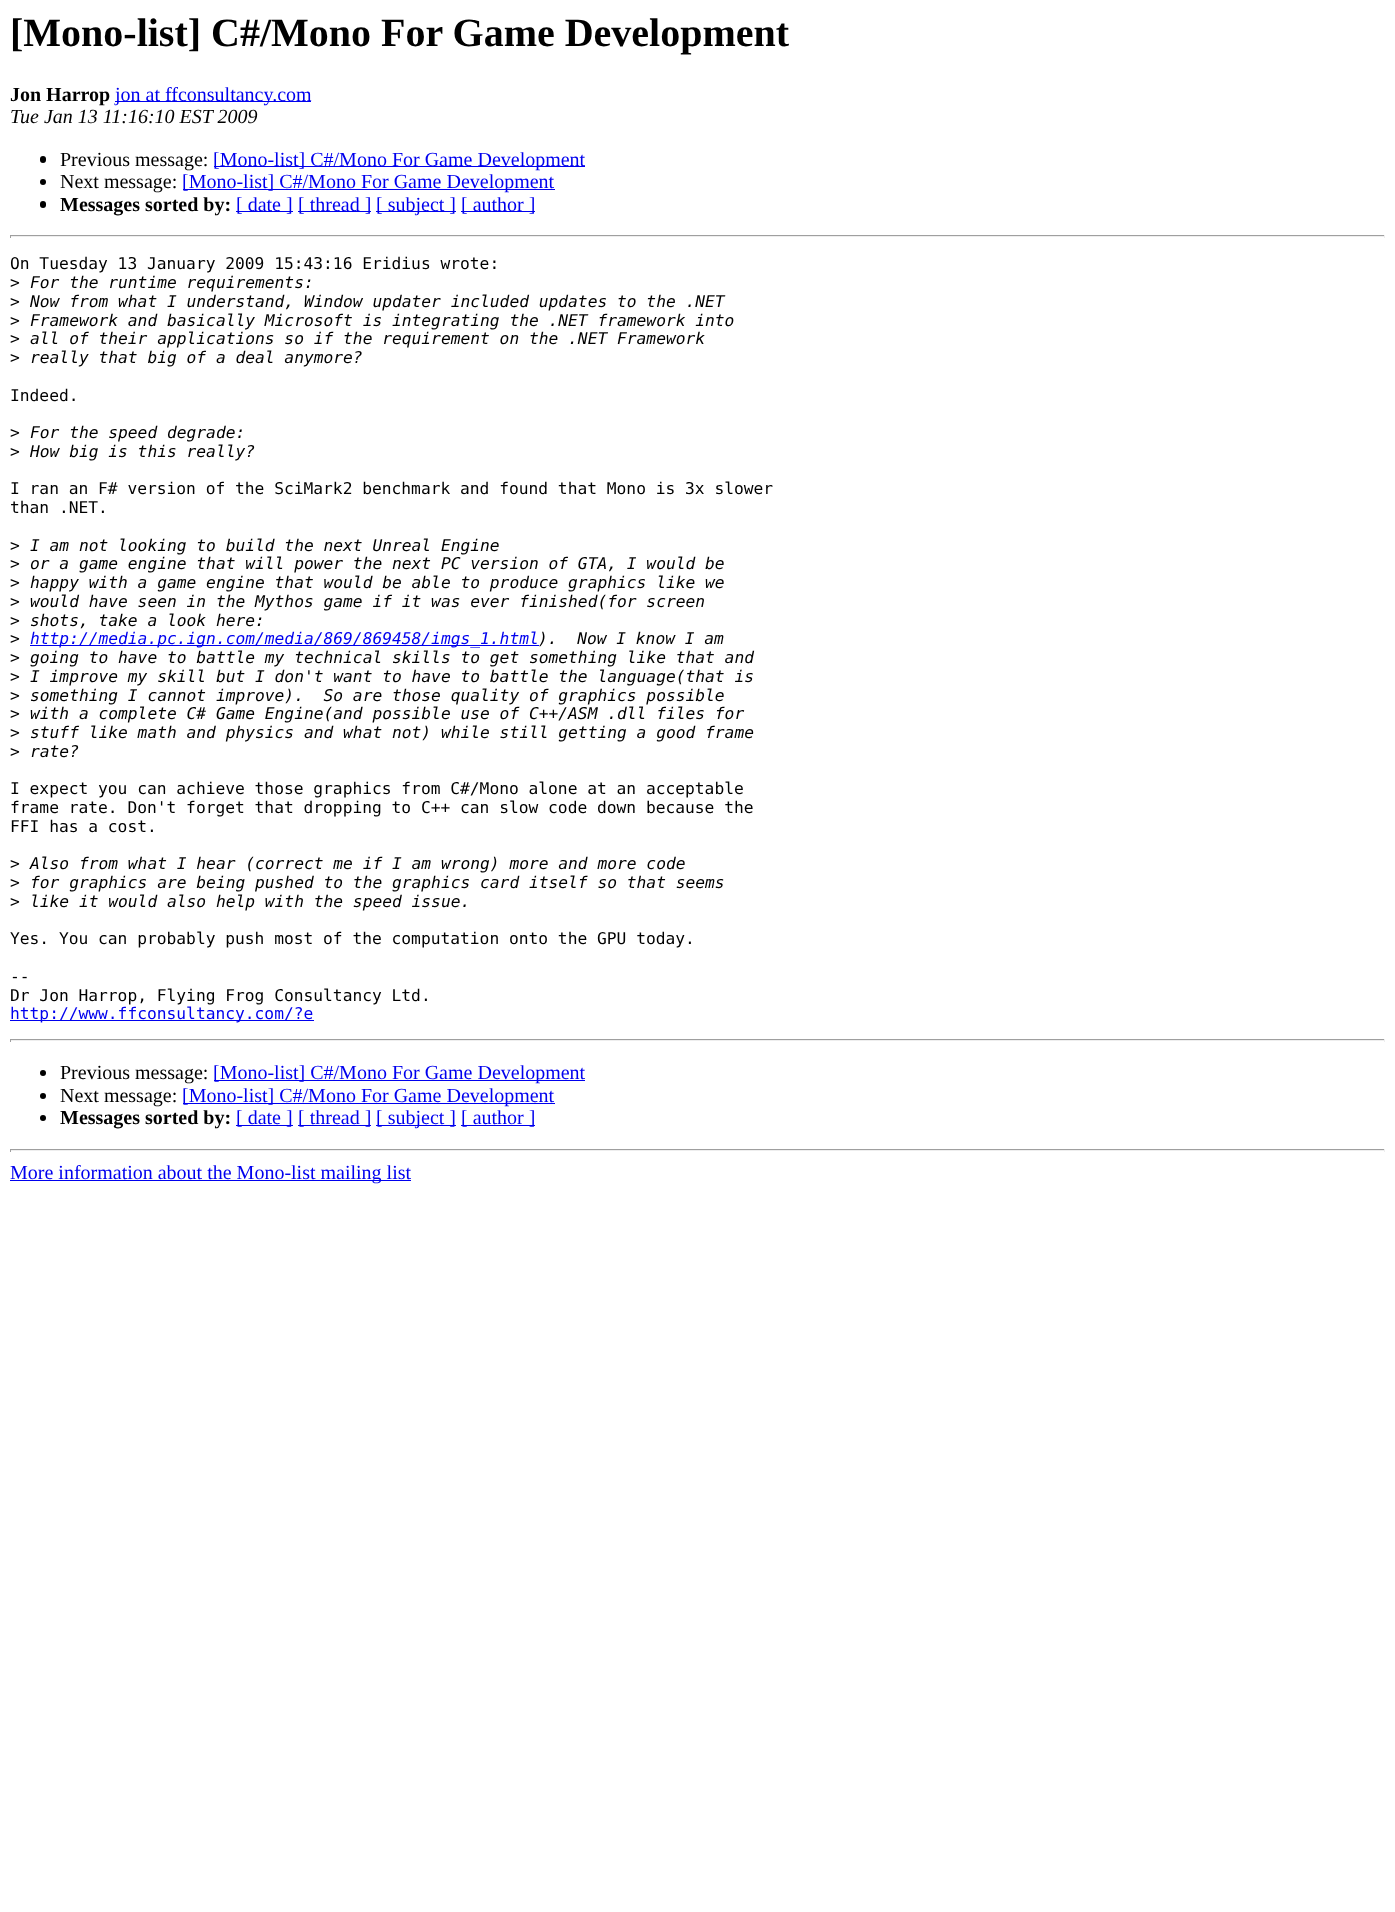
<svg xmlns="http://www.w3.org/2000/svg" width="1395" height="1912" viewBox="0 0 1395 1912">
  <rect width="100%" height="100%" fill="rgb(255,255,255)"/>
  <text x="10" y="46" font-family="Liberation Serif" font-size="40" font-weight="bold" fill="rgb(0,0,0)">[Mono-list] C#/Mono For Game Development</text>
  <text x="10" y="101" font-family="Liberation Serif" font-size="20" font-weight="bold" fill="rgb(0,0,0)">Jon Harrop</text>
  <rect x="115" y="101" width="196" height="1" fill="rgb(0,0,238)"/>
  <text x="115" y="101" font-family="Liberation Serif" font-size="20" fill="rgb(0,0,238)">jon at ffconsultancy.com</text>
  <text x="10" y="123" font-family="Liberation Serif" font-size="20" font-style="italic" fill="rgb(0,0,0)">Tue Jan 13 11:16:10 EST 2009</text>
  <rect x="40" y="156" width="6" height="7" rx="3" fill="rgb(0,0,0)"/>
  <text x="60" y="166" font-family="Liberation Serif" font-size="20" fill="rgb(0,0,0)">Previous message:</text>
  <rect x="214" y="166" width="371" height="1" fill="rgb(0,0,238)"/>
  <text x="213" y="166" font-family="Liberation Serif" font-size="20" fill="rgb(0,0,238)">[Mono-list] C#/Mono For Game Development</text>
  <circle cx="43" cy="182" r="3" fill="rgb(0,0,0)"/>
  <text x="60" y="188" font-family="Liberation Serif" font-size="20" fill="rgb(0,0,0)">Next message:</text>
  <rect x="183" y="189" width="372" height="1" fill="rgb(0,0,238)"/>
  <text x="182" y="188" font-family="Liberation Serif" font-size="20" fill="rgb(0,0,238)">[Mono-list] C#/Mono For Game Development</text>
  <rect x="40" y="201" width="6" height="7" rx="3" fill="rgb(0,0,0)"/>
  <text x="60" y="211" font-family="Liberation Serif" font-size="20" font-weight="bold" fill="rgb(0,0,0)">Messages sorted by:</text>
  <rect x="236" y="211" width="57" height="1" fill="rgb(0,0,238)"/>
  <text x="236" y="211" font-family="Liberation Serif" font-size="20" fill="rgb(0,0,238)">[ date ]</text>
  <rect x="298" y="211" width="73" height="1" fill="rgb(0,0,238)"/>
  <text x="298" y="211" font-family="Liberation Serif" font-size="20" fill="rgb(0,0,238)">[ thread ]</text>
  <rect x="376" y="211" width="80" height="1" fill="rgb(0,0,238)"/>
  <text x="376" y="211" font-family="Liberation Serif" font-size="20" fill="rgb(0,0,238)">[ subject ]</text>
  <rect x="461" y="211" width="74" height="1" fill="rgb(0,0,238)"/>
  <text x="461" y="211" font-family="Liberation Serif" font-size="20" fill="rgb(0,0,238)">[ author ]</text>
  <rect x="10" y="235" width="1375" height="1" fill="rgb(159,159,159)"/>
  <rect x="1384" y="235" width="1" height="3" fill="rgb(238,238,238)"/>
  <rect x="10" y="236" width="1375" height="1" fill="rgb(238,238,238)"/>
  <rect x="10" y="235" width="1" height="3" fill="rgb(159,159,159)"/>
  <g font-family="DejaVu Sans Mono" font-size="16.25" fill="rgb(0,0,0)">
    <text>
      <tspan x="10" y="269">On Tuesday 13 January 2009 15:43:16 Eridius wrote:</tspan>
      <tspan x="10" y="288">&gt;</tspan>
    </text>
  </g>
  <text x="30" y="288" font-family="DejaVu Sans Mono" font-size="16.25" font-style="italic" fill="rgb(0,0,0)">For the runtime requirements:</text>
  <text x="10" y="307" font-family="DejaVu Sans Mono" font-size="16.25" fill="rgb(0,0,0)">&gt;</text>
  <text x="30" y="307" font-family="DejaVu Sans Mono" font-size="16.25" font-style="italic" fill="rgb(0,0,0)">Now from what I understand, Window updater included updates to the .NET</text>
  <text x="10" y="326" font-family="DejaVu Sans Mono" font-size="16.25" fill="rgb(0,0,0)">&gt;</text>
  <text x="30" y="326" font-family="DejaVu Sans Mono" font-size="16.25" font-style="italic" fill="rgb(0,0,0)">Framework and basically Microsoft is integrating the .NET framework into</text>
  <text x="10" y="344" font-family="DejaVu Sans Mono" font-size="16.25" fill="rgb(0,0,0)">&gt;</text>
  <text x="30" y="344" font-family="DejaVu Sans Mono" font-size="16.25" font-style="italic" fill="rgb(0,0,0)">all of their applications so if the requirement on the .NET Framework</text>
  <text x="10" y="363" font-family="DejaVu Sans Mono" font-size="16.25" fill="rgb(0,0,0)">&gt;</text>
  <text x="30" y="363" font-family="DejaVu Sans Mono" font-size="16.25" font-style="italic" fill="rgb(0,0,0)">really that big of a deal anymore?</text>
  <g font-family="DejaVu Sans Mono" font-size="16.25" fill="rgb(0,0,0)">
    <text x="10" y="401">Indeed.</text>
    <text x="10" y="438">&gt;</text>
  </g>
  <text x="30" y="438" font-family="DejaVu Sans Mono" font-size="16.25" font-style="italic" fill="rgb(0,0,0)">For the speed degrade:</text>
  <text x="10" y="457" font-family="DejaVu Sans Mono" font-size="16.25" fill="rgb(0,0,0)">&gt;</text>
  <text x="30" y="457" font-family="DejaVu Sans Mono" font-size="16.25" font-style="italic" fill="rgb(0,0,0)">How big is this really?</text>
  <g font-family="DejaVu Sans Mono" font-size="16.25" fill="rgb(0,0,0)">
    <text>
      <tspan x="10" y="494">I ran an F# version of the SciMark2 benchmark and found that Mono is 3x slower</tspan>
      <tspan x="10" y="513">than .NET.</tspan>
    </text>
    <text x="10" y="551">&gt;</text>
  </g>
  <text x="30" y="551" font-family="DejaVu Sans Mono" font-size="16.25" font-style="italic" fill="rgb(0,0,0)">I am not looking to build the next Unreal Engine</text>
  <text x="10" y="569" font-family="DejaVu Sans Mono" font-size="16.25" fill="rgb(0,0,0)">&gt;</text>
  <text x="30" y="569" font-family="DejaVu Sans Mono" font-size="16.25" font-style="italic" fill="rgb(0,0,0)">or a game engine that will power the next PC version of GTA, I would be</text>
  <text x="10" y="588" font-family="DejaVu Sans Mono" font-size="16.25" fill="rgb(0,0,0)">&gt;</text>
  <text x="30" y="588" font-family="DejaVu Sans Mono" font-size="16.25" font-style="italic" fill="rgb(0,0,0)">happy with a game engine that would be able to produce graphics like we</text>
  <text x="10" y="607" font-family="DejaVu Sans Mono" font-size="16.25" fill="rgb(0,0,0)">&gt;</text>
  <text x="30" y="607" font-family="DejaVu Sans Mono" font-size="16.25" font-style="italic" fill="rgb(0,0,0)">would have seen in the Mythos game if it was ever finished(for screen</text>
  <text x="10" y="626" font-family="DejaVu Sans Mono" font-size="16.25" fill="rgb(0,0,0)">&gt;</text>
  <text x="30" y="626" font-family="DejaVu Sans Mono" font-size="16.25" font-style="italic" fill="rgb(0,0,0)">shots, take a look here:</text>
  <text x="10" y="644" font-family="DejaVu Sans Mono" font-size="16.25" fill="rgb(0,0,0)">&gt;</text>
  <rect x="30" y="645" width="509" height="1" fill="rgb(0,0,238)"/>
  <text x="30" y="644" font-family="DejaVu Sans Mono" font-size="16.25" font-style="italic" fill="rgb(0,0,238)">http://media.pc.ign.com/media/869/869458/imgs_1.html</text>
  <text x="538" y="644" font-family="DejaVu Sans Mono" font-size="16.25" font-style="italic" fill="rgb(0,0,0)" xml:space="preserve">).  Now I know I am</text>
  <text x="10" y="663" font-family="DejaVu Sans Mono" font-size="16.25" fill="rgb(0,0,0)">&gt;</text>
  <text x="30" y="663" font-family="DejaVu Sans Mono" font-size="16.25" font-style="italic" fill="rgb(0,0,0)">going to have to battle my technical skills to get something like that and</text>
  <text x="10" y="682" font-family="DejaVu Sans Mono" font-size="16.25" fill="rgb(0,0,0)">&gt;</text>
  <text x="30" y="682" font-family="DejaVu Sans Mono" font-size="16.25" font-style="italic" fill="rgb(0,0,0)">I improve my skill but I don't want to have to battle the language(that is</text>
  <text x="10" y="701" font-family="DejaVu Sans Mono" font-size="16.25" fill="rgb(0,0,0)">&gt;</text>
  <text x="30" y="701" font-family="DejaVu Sans Mono" font-size="16.25" font-style="italic" fill="rgb(0,0,0)" xml:space="preserve">something I cannot improve).  So are those quality of graphics possible</text>
  <text x="10" y="719" font-family="DejaVu Sans Mono" font-size="16.25" fill="rgb(0,0,0)">&gt;</text>
  <text x="30" y="719" font-family="DejaVu Sans Mono" font-size="16.25" font-style="italic" fill="rgb(0,0,0)">with a complete C# Game Engine(and possible use of C++/ASM .dll files for</text>
  <text x="10" y="738" font-family="DejaVu Sans Mono" font-size="16.25" fill="rgb(0,0,0)">&gt;</text>
  <text x="30" y="738" font-family="DejaVu Sans Mono" font-size="16.25" font-style="italic" fill="rgb(0,0,0)">stuff like math and physics and what not) while still getting a good frame</text>
  <text x="10" y="757" font-family="DejaVu Sans Mono" font-size="16.25" fill="rgb(0,0,0)">&gt;</text>
  <text x="30" y="757" font-family="DejaVu Sans Mono" font-size="16.25" font-style="italic" fill="rgb(0,0,0)">rate?</text>
  <g font-family="DejaVu Sans Mono" font-size="16.25" fill="rgb(0,0,0)">
    <text>
      <tspan x="10" y="794">I expect you can achieve those graphics from C#/Mono alone at an acceptable</tspan>
      <tspan x="10" y="813">frame rate. Don't forget that dropping to C++ can slow code down because the</tspan>
      <tspan x="10" y="832">FFI has a cost.</tspan>
    </text>
    <text x="10" y="869">&gt;</text>
  </g>
  <text x="30" y="869" font-family="DejaVu Sans Mono" font-size="16.25" font-style="italic" fill="rgb(0,0,0)">Also from what I hear (correct me if I am wrong) more and more code</text>
  <text x="10" y="888" font-family="DejaVu Sans Mono" font-size="16.25" fill="rgb(0,0,0)">&gt;</text>
  <text x="30" y="888" font-family="DejaVu Sans Mono" font-size="16.25" font-style="italic" fill="rgb(0,0,0)">for graphics are being pushed to the graphics card itself so that seems</text>
  <text x="10" y="907" font-family="DejaVu Sans Mono" font-size="16.25" fill="rgb(0,0,0)">&gt;</text>
  <text x="30" y="907" font-family="DejaVu Sans Mono" font-size="16.25" font-style="italic" fill="rgb(0,0,0)">like it would also help with the speed issue.</text>
  <g font-family="DejaVu Sans Mono" font-size="16.25" fill="rgb(0,0,0)">
    <text x="10" y="944">Yes. You can probably push most of the computation onto the GPU today.</text>
    <text>
      <tspan x="10" y="982">--</tspan>
      <tspan x="10" y="1001">Dr Jon Harrop, Flying Frog Consultancy Ltd.</tspan>
    </text>
  </g>
  <rect x="10" y="1020" width="304" height="1" fill="rgb(0,0,238)"/>
  <text x="10" y="1019" font-family="DejaVu Sans Mono" font-size="16.25" fill="rgb(0,0,238)">http://www.ffconsultancy.com/?e</text>
  <rect x="10" y="1039" width="1375" height="1" fill="rgb(159,159,159)"/>
  <rect x="1384" y="1039" width="1" height="3" fill="rgb(238,238,238)"/>
  <rect x="10" y="1040" width="1375" height="1" fill="rgb(238,238,238)"/>
  <rect x="10" y="1039" width="1" height="3" fill="rgb(159,159,159)"/>
  <circle cx="43" cy="1073" r="3" fill="rgb(0,0,0)"/>
  <text x="60" y="1079" font-family="Liberation Serif" font-size="20" fill="rgb(0,0,0)">Previous message:</text>
  <rect x="214" y="1080" width="371" height="1" fill="rgb(0,0,238)"/>
  <text x="213" y="1079" font-family="Liberation Serif" font-size="20" fill="rgb(0,0,238)">[Mono-list] C#/Mono For Game Development</text>
  <circle cx="43" cy="1096" r="3" fill="rgb(0,0,0)"/>
  <text x="60" y="1102" font-family="Liberation Serif" font-size="20" fill="rgb(0,0,0)">Next message:</text>
  <rect x="183" y="1103" width="372" height="1" fill="rgb(0,0,238)"/>
  <text x="182" y="1102" font-family="Liberation Serif" font-size="20" fill="rgb(0,0,238)">[Mono-list] C#/Mono For Game Development</text>
  <circle cx="43" cy="1118" r="3" fill="rgb(0,0,0)"/>
  <text x="60" y="1124" font-family="Liberation Serif" font-size="20" font-weight="bold" fill="rgb(0,0,0)">Messages sorted by:</text>
  <rect x="236" y="1125" width="57" height="1" fill="rgb(0,0,238)"/>
  <text x="236" y="1124" font-family="Liberation Serif" font-size="20" fill="rgb(0,0,238)">[ date ]</text>
  <rect x="298" y="1125" width="73" height="1" fill="rgb(0,0,238)"/>
  <text x="298" y="1124" font-family="Liberation Serif" font-size="20" fill="rgb(0,0,238)">[ thread ]</text>
  <rect x="376" y="1125" width="80" height="1" fill="rgb(0,0,238)"/>
  <text x="376" y="1124" font-family="Liberation Serif" font-size="20" fill="rgb(0,0,238)">[ subject ]</text>
  <rect x="461" y="1125" width="74" height="1" fill="rgb(0,0,238)"/>
  <text x="461" y="1124" font-family="Liberation Serif" font-size="20" fill="rgb(0,0,238)">[ author ]</text>
  <rect x="10" y="1149" width="1375" height="1" fill="rgb(159,159,159)"/>
  <rect x="1384" y="1149" width="1" height="3" fill="rgb(238,238,238)"/>
  <rect x="10" y="1150" width="1375" height="1" fill="rgb(238,238,238)"/>
  <rect x="10" y="1149" width="1" height="3" fill="rgb(159,159,159)"/>
  <rect x="10" y="1180" width="401" height="1" fill="rgb(0,0,238)"/>
  <text x="10" y="1179" font-family="Liberation Serif" font-size="20" fill="rgb(0,0,238)">More information about the Mono-list mailing list</text>
</svg>
